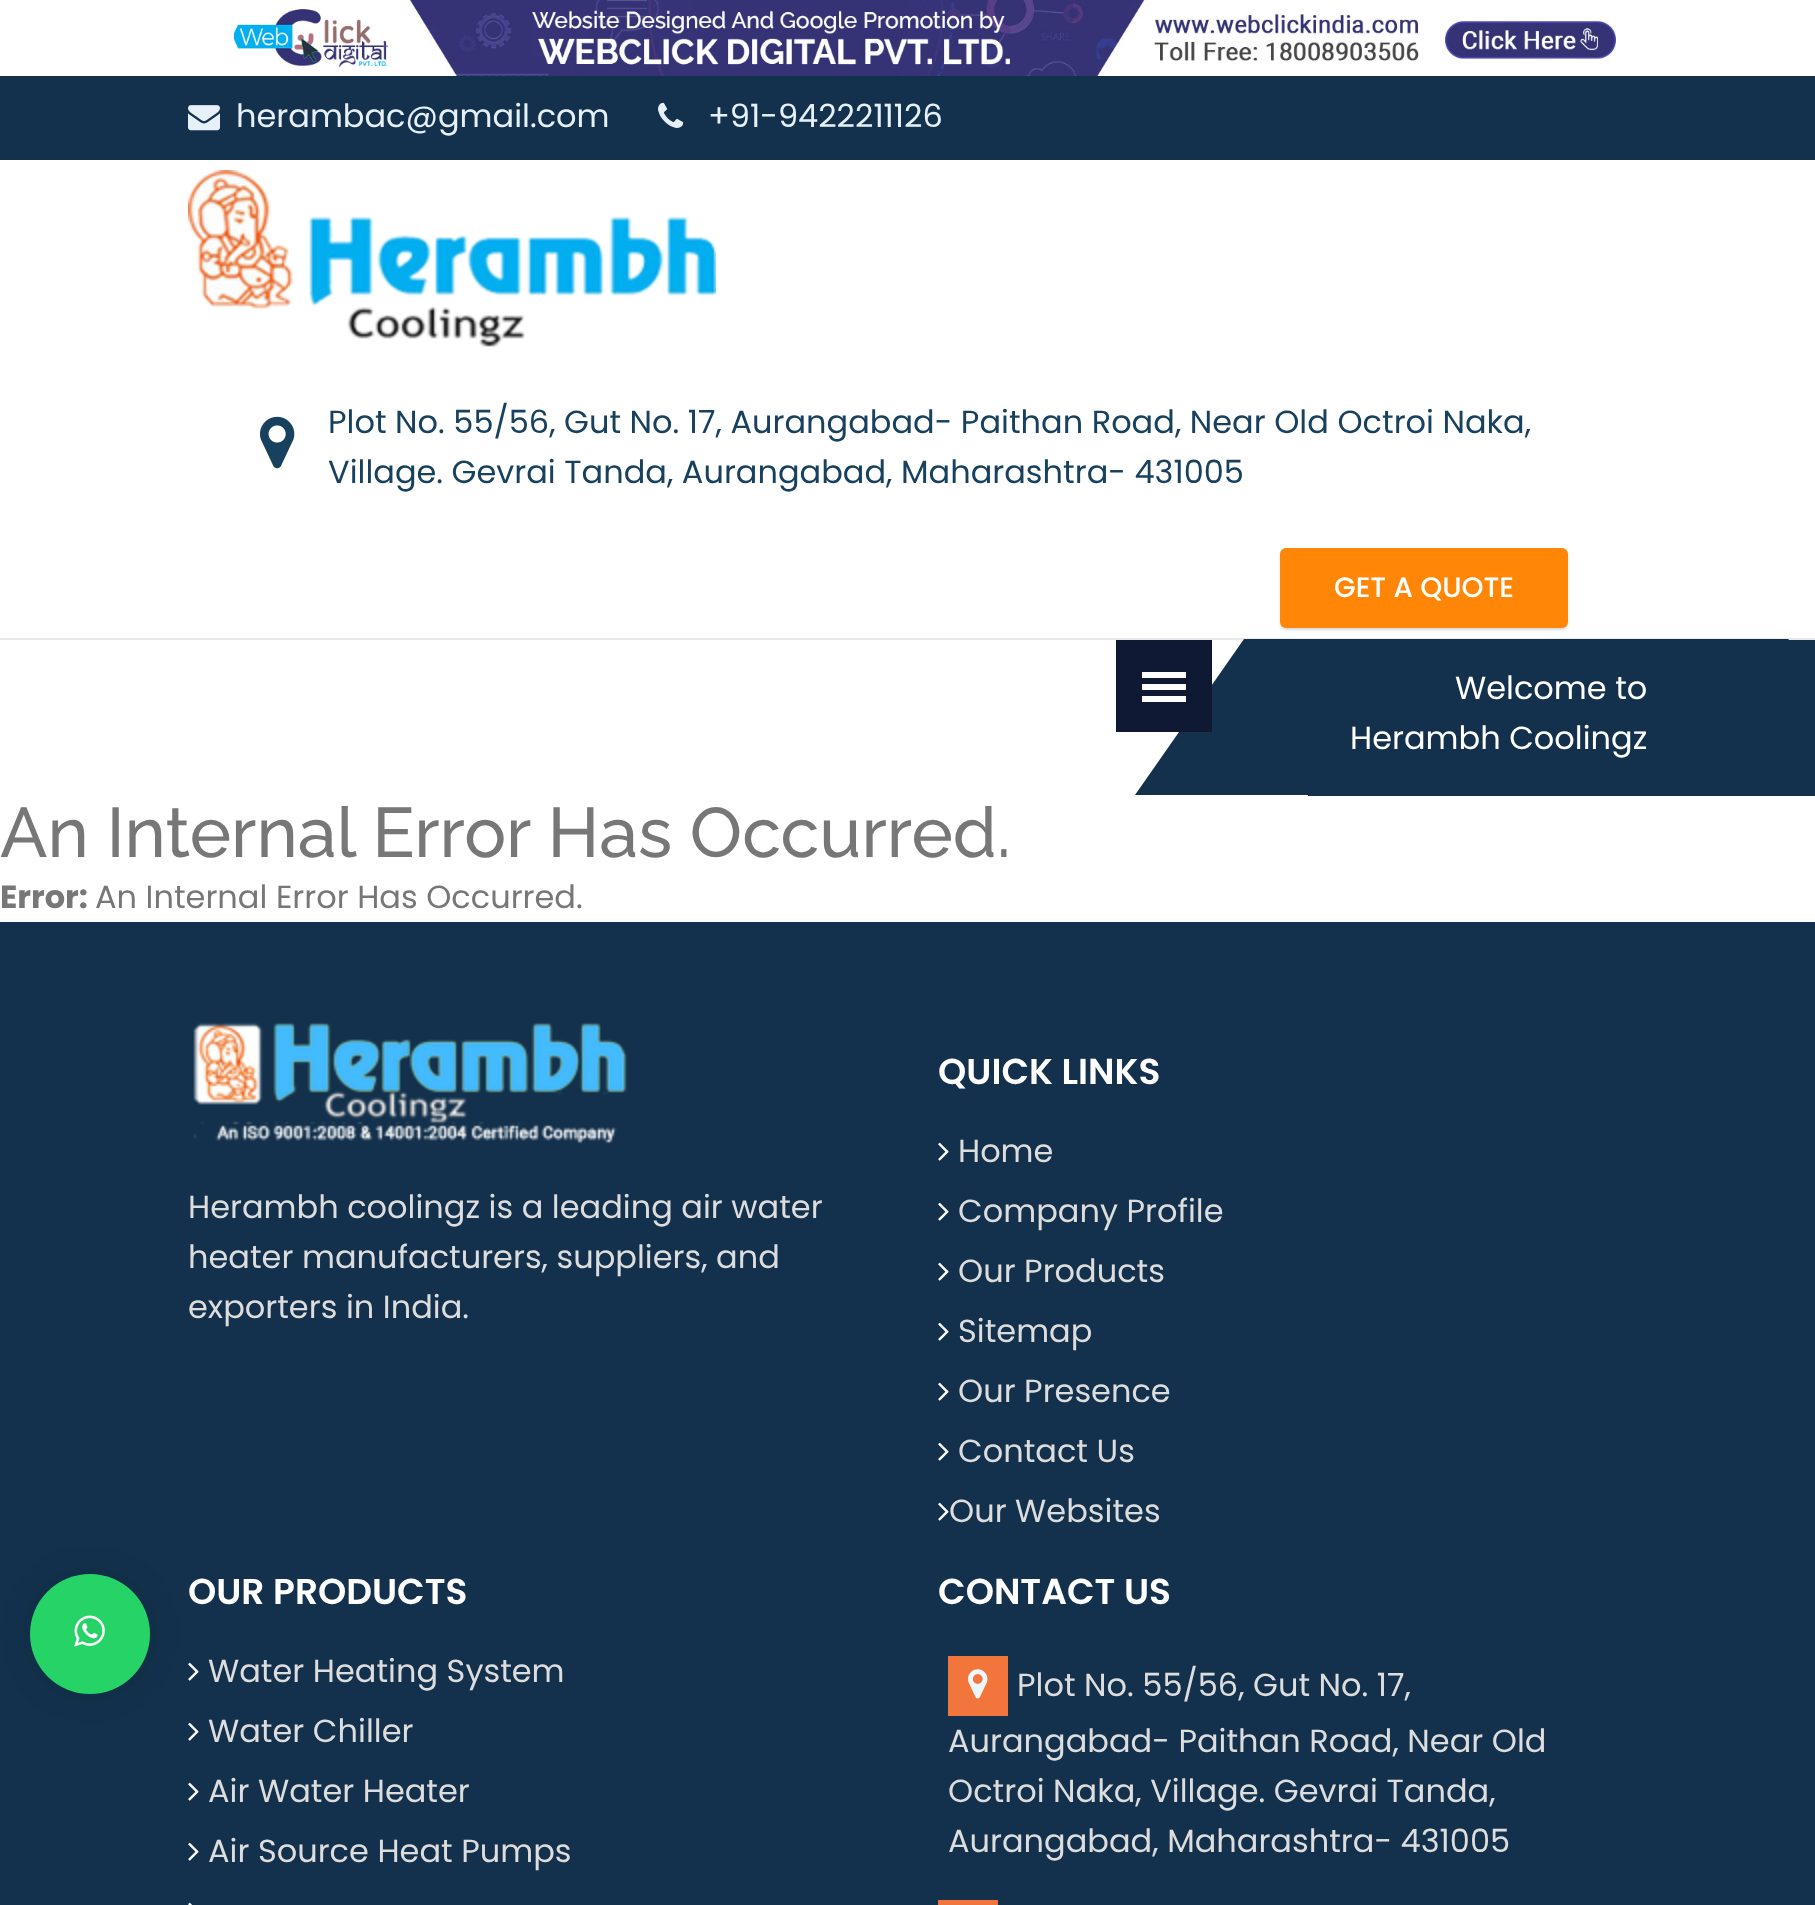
<svg xmlns="http://www.w3.org/2000/svg" width="1815" height="1905" viewBox="0 0 1815 1905">
  <rect width="100%" height="100%" fill="rgb(255,255,255)"/>
  <image x="230" y="0" width="1386" height="76" href="pic1.png"/>
  <rect x="0" y="76" width="1815" height="84" fill="rgb(19,49,76)"/>
  <image x="188" y="105" width="32" height="26" href="pic2.png"/>
  <text x="236" y="127" font-family="Poppins" font-size="32" fill="rgb(230,240,249)">herambac@gmail.com</text>
  <image x="658" y="102" width="26" height="26" href="pic3.png"/>
  <text x="708" y="127" font-family="Poppins" font-size="32" fill="rgb(230,240,249)">+91-9422211126</text>
  <rect x="0" y="638" width="1815" height="2" fill="rgb(232,232,232)"/>
  <image x="188" y="170" width="528" height="177" href="pic4.png"/>
  <image x="260" y="416" width="35" height="53" href="pic5.png"/>
  <g font-family="Poppins" font-size="32" fill="rgb(23,65,95)">
    <text>
      <tspan x="328" y="433">Plot No. 55/56, Gut No. 17, Aurangabad- Paithan Road, Near Old Octroi Naka,</tspan>
      <tspan x="328" y="483">Village. Gevrai Tanda, Aurangabad, Maharashtra- 431005</tspan>
    </text>
  </g>
  <rect x="1280" y="550" width="288" height="80" rx="6" fill="rgb(219,219,219)" filter="blur(1px)"/>
  <rect x="1280" y="548" width="288" height="80" rx="6" fill="rgb(255,134,6)"/>
  <text x="1334" y="597" font-family="Poppins" font-size="28" font-weight="500" fill="rgb(255,255,255)">GET A QUOTE</text>
  <path d="M1244 639H1789L1679 795H1135Z" fill="rgb(19,49,76)"/>
  <rect x="1308" y="640" width="507" height="156" fill="rgb(19,49,76)"/>
  <rect x="1116" y="640" width="96" height="92" fill="rgb(15,25,52)"/>
  <rect x="1142" y="672" width="44" height="6" fill="rgb(255,255,255)"/>
  <rect x="1142" y="684" width="44" height="6" fill="rgb(255,255,255)"/>
  <rect x="1142" y="696" width="44" height="6" fill="rgb(255,255,255)"/>
  <g font-family="Poppins" font-size="32" fill="rgb(255,255,255)">
    <text x="1455" y="699">Welcome to</text>
    <text x="1350" y="749">Herambh Coolingz</text>
  </g>
  <text x="0" y="857" font-family="Raleway" font-size="70" font-weight="500" fill="rgb(119,119,119)">An Internal Error Has Occurred.</text>
  <text x="0" y="908" font-family="Poppins" font-size="32" font-weight="bold" fill="rgb(119,119,119)">Error:</text>
  <text x="95" y="908" font-family="Poppins" font-size="32" fill="rgb(119,119,119)">An Internal Error Has Occurred.</text>
  <rect x="0" y="922" width="1815" height="983" fill="rgb(19,49,76)"/>
  <image x="188" y="1662" width="11" height="19" href="pic8.png"/>
  <image x="188" y="1722" width="11" height="19" href="pic8.png"/>
  <rect x="40" y="1584" width="100" height="100" rx="50" fill="rgba(0,0,0,0.15)" filter="blur(20px)"/>
  <circle cx="90" cy="1634" r="60" fill="rgb(37,211,102)"/>
  <image x="74" y="1615" width="31" height="32" href="pic6.png"/>
  <image x="193" y="1022" width="434" height="122" href="pic7.png"/>
  <g font-family="Poppins" font-size="32" fill="rgb(221,221,221)">
    <text>
      <tspan x="188" y="1218">Herambh coolingz is a leading air water</tspan>
      <tspan x="188" y="1268">heater manufacturers, suppliers, and</tspan>
      <tspan x="188" y="1318">exporters in India.</tspan>
    </text>
  </g>
  <text x="938" y="1084" font-family="Poppins" font-size="36" font-weight="600" fill="rgb(255,255,255)">QUICK LINKS</text>
  <image x="938" y="1142" width="11" height="19" href="pic8.png"/>
  <text x="958" y="1162" font-family="Poppins" font-size="32" fill="rgb(221,221,221)">Home</text>
  <image x="938" y="1202" width="11" height="19" href="pic8.png"/>
  <text x="958" y="1222" font-family="Poppins" font-size="32" fill="rgb(221,221,221)">Company Profile</text>
  <image x="938" y="1262" width="11" height="19" href="pic8.png"/>
  <text x="958" y="1282" font-family="Poppins" font-size="32" fill="rgb(221,221,221)">Our Products</text>
  <image x="938" y="1322" width="11" height="19" href="pic8.png"/>
  <text x="958" y="1342" font-family="Poppins" font-size="32" fill="rgb(221,221,221)">Sitemap</text>
  <image x="938" y="1382" width="11" height="19" href="pic8.png"/>
  <text x="958" y="1402" font-family="Poppins" font-size="32" fill="rgb(221,221,221)">Our Presence</text>
  <image x="938" y="1442" width="11" height="19" href="pic8.png"/>
  <text x="958" y="1462" font-family="Poppins" font-size="32" fill="rgb(221,221,221)">Contact Us</text>
  <image x="938" y="1502" width="11" height="19" href="pic8.png"/>
  <text x="949" y="1522" font-family="Poppins" font-size="32" fill="rgb(221,221,221)">Our Websites</text>
  <text x="188" y="1604" font-family="Poppins" font-size="36" font-weight="600" fill="rgb(255,255,255)">OUR PRODUCTS</text>
  <g font-family="Poppins" font-size="32" fill="rgb(221,221,221)">
    <text>
      <tspan x="208" y="1682">Water Heating System</tspan>
      <tspan x="208" y="1742">Water Chiller</tspan>
    </text>
  </g>
  <image x="188" y="1782" width="11" height="19" href="pic8.png"/>
  <text x="208" y="1802" font-family="Poppins" font-size="32" fill="rgb(221,221,221)">Air Water Heater</text>
  <image x="188" y="1842" width="11" height="19" href="pic8.png"/>
  <text x="208" y="1862" font-family="Poppins" font-size="32" fill="rgb(221,221,221)">Air Source Heat Pumps</text>
  <image x="188" y="1902" width="4" height="3" href="pic9.png"/>
  <text x="938" y="1604" font-family="Poppins" font-size="36" font-weight="600" fill="rgb(255,255,255)">CONTACT US</text>
  <rect x="948" y="1656" width="60" height="60" fill="rgb(242,118,60)"/>
  <image x="968" y="1669" width="20" height="30" href="pic10.png"/>
  <g font-family="Poppins" font-size="32" fill="rgb(221,221,221)">
    <text x="1017" y="1696">Plot No. 55/56, Gut No. 17,</text>
    <text>
      <tspan x="948" y="1752">Aurangabad- Paithan Road, Near Old</tspan>
      <tspan x="948" y="1802">Octroi Naka, Village. Gevrai Tanda,</tspan>
      <tspan x="948" y="1852">Aurangabad, Maharashtra- 431005</tspan>
    </text>
  </g>
  <rect x="938" y="1900" width="60" height="5" fill="rgb(242,118,60)"/>
</svg>
